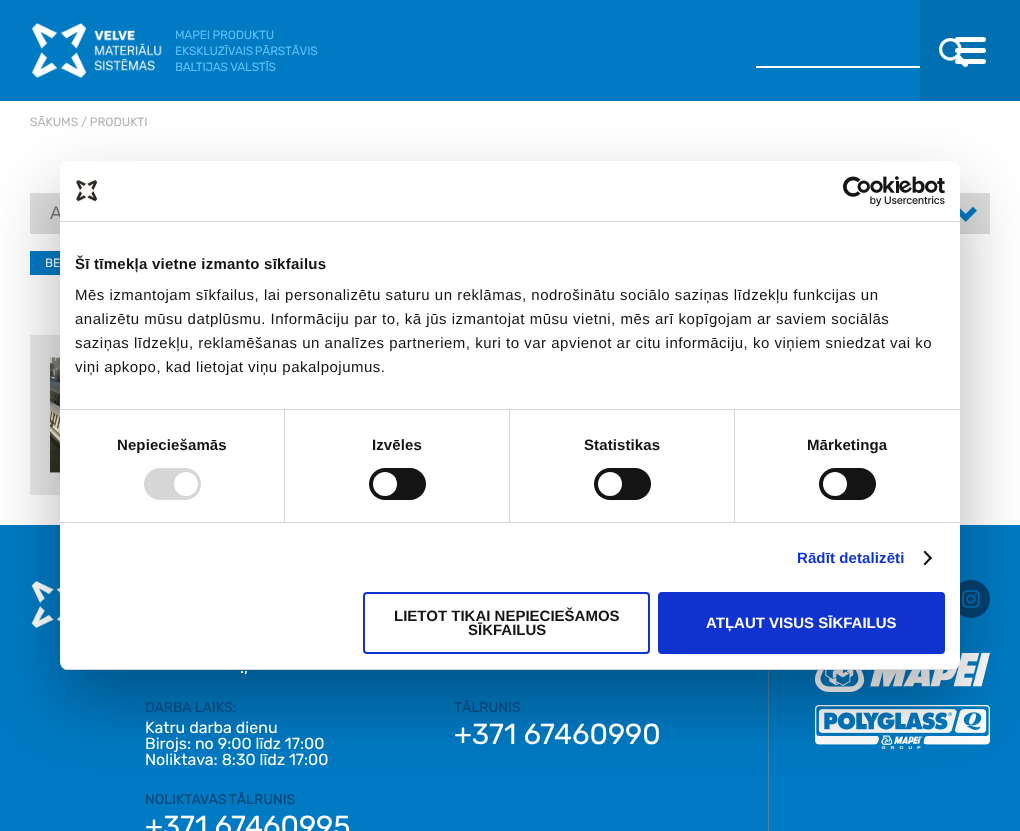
<svg xmlns="http://www.w3.org/2000/svg" width="1020" height="831" viewBox="0 0 1020 831">
  <defs>
    <clipPath id="clip1"><rect x="60" y="161" width="900" height="509" rx="8"/></clipPath>
  </defs>
  <rect width="100%" height="100%" fill="rgb(255,255,255)"/>
  <rect x="0" y="0" width="1020" height="101" fill="rgb(0,122,195)"/>
  <image x="31" y="23" width="131" height="56" href="pic1.png"/>
  <g font-family="Rubik" font-size="12" letter-spacing="-0.2" fill="rgb(90,193,255)">
    <text>
      <tspan x="175" y="39">MAPEI PRODUKTU</tspan>
      <tspan x="175" y="55" word-spacing="-1">EKSKLUZĪVAIS PĀRSTĀVIS</tspan>
      <tspan x="175" y="71">BALTIJAS VALSTĪS</tspan>
    </text>
  </g>
  <rect x="756" y="66" width="170" height="2" fill="rgb(255,255,255)"/>
  <rect x="920" y="0" width="100" height="100" fill="rgb(0,111,177)"/>
  <rect x="955" y="37" width="31" height="5" rx="2.5" fill="rgb(255,255,255)"/>
  <rect x="955" y="48" width="31" height="5" rx="2.5" fill="rgb(255,255,255)"/>
  <rect x="955" y="59" width="31" height="5" rx="2.5" fill="rgb(255,255,255)"/>
  <image x="939" y="38" width="29" height="29" href="pic2.png"/>
  <text x="30" y="126" font-family="Rubik" font-size="12" fill="rgb(180,180,180)">SĀKUMS / PRODUKTI</text>
  <rect x="30" y="193" width="30" height="41" fill="rgb(222,222,222)"/>
  <text x="50" y="219" font-family="Liberation Sans" font-size="18" fill="rgb(117,117,117)">A</text>
  <rect x="960" y="193" width="30" height="41" fill="rgb(222,222,222)"/>
  <image x="960" y="206" width="17" height="16" href="pic3.png"/>
  <rect x="30" y="251" width="30" height="24" fill="rgb(0,122,195)"/>
  <text x="45" y="267" font-family="Rubik" font-size="12" fill="rgb(255,255,255)">BE</text>
  <rect x="30" y="335" width="30" height="160" fill="rgb(233,233,233)"/>
  <image x="50" y="357" width="10" height="116" href="pic4.png"/>
  <rect x="0" y="525" width="1020" height="306" fill="rgb(0,122,195)"/>
  <image x="31" y="580" width="29" height="49" href="pic7.png"/>
  <rect x="768" y="670" width="1" height="161" fill="rgb(77,128,166)"/>
  <circle cx="971" cy="599" r="19" fill="rgb(2,66,113)"/>
  <image x="962" y="590" width="18" height="18" href="pic8.png"/>
  <image x="815" y="652" width="175" height="40" href="pic9.png"/>
  <image x="815" y="705" width="175" height="44" href="pic10.png"/>
  <rect x="60" y="193" width="900" height="509" rx="8" fill="rgba(0,0,0,0.3)" filter="blur(34px)"/>
  <rect x="60" y="161" width="900" height="509" rx="8" fill="rgb(255,255,255)"/>
  <rect x="60" y="221" width="900" height="1" fill="rgb(214,214,214)"/>
  <image x="76" y="180" width="22" height="22" href="pic5.png"/>
  <image x="843" y="176" width="102" height="30" href="pic6.png"/>
  <rect x="60" y="409" width="900" height="1" fill="rgb(214,214,214)"/>
  <text x="75" y="269" font-family="Liberation Sans" font-size="15" font-weight="bold" letter-spacing="0.25" fill="rgb(20,20,20)">Šī tīmekļa vietne izmanto sīkfailus</text>
  <g font-family="Liberation Sans" font-size="15" letter-spacing="0.5" fill="rgb(20,20,20)">
    <text>
      <tspan x="75" y="300">Mēs izmantojam sīkfailus, lai personalizētu saturu un reklāmas, nodrošinātu sociālo saziņas līdzekļu funkcijas un</tspan>
      <tspan x="75" y="324">analizētu mūsu datplūsmu. Informāciju par to, kā jūs izmantojat mūsu vietni, mēs arī kopīgojam ar saviem sociālās</tspan>
      <tspan x="75" y="348">saziņas līdzekļu, reklamēšanas un analīzes partneriem, kuri to var apvienot ar citu informāciju, ko viņiem sniedzat vai ko</tspan>
      <tspan x="75" y="372">viņi apkopo, kad lietojat viņu pakalpojumus.</tspan>
    </text>
  </g>
  <rect x="60" y="522" width="900" height="1" fill="rgb(214,214,214)"/>
  <rect x="284" y="410" width="1" height="112" fill="rgb(214,214,214)"/>
  <text x="117" y="450" font-family="Liberation Sans" font-size="15" font-weight="bold" letter-spacing="0.1" fill="rgb(20,20,20)">Nepieciešamās</text>
  <rect x="144" y="468" width="57" height="32" rx="16" fill="rgb(214,214,214)"/>
  <circle cx="186" cy="484" r="12" fill="rgb(255,255,255)"/>
  <rect x="509" y="410" width="1" height="112" fill="rgb(214,214,214)"/>
  <text x="372" y="450" font-family="Liberation Sans" font-size="15" font-weight="bold" letter-spacing="0.1" fill="rgb(20,20,20)">Izvēles</text>
  <rect x="369" y="468" width="57" height="32" rx="16" fill="rgb(20,20,20)"/>
  <circle cx="385" cy="484" r="12" fill="rgb(255,255,255)"/>
  <rect x="734" y="410" width="1" height="112" fill="rgb(214,214,214)"/>
  <text x="584" y="450" font-family="Liberation Sans" font-size="15" font-weight="bold" letter-spacing="0.1" fill="rgb(20,20,20)">Statistikas</text>
  <rect x="594" y="468" width="57" height="32" rx="16" fill="rgb(20,20,20)"/>
  <circle cx="610" cy="484" r="12" fill="rgb(255,255,255)"/>
  <text x="807" y="450" font-family="Liberation Sans" font-size="15" font-weight="bold" letter-spacing="0.1" fill="rgb(20,20,20)">Mārketinga</text>
  <rect x="819" y="468" width="57" height="32" rx="16" fill="rgb(20,20,20)"/>
  <circle cx="835" cy="484" r="12" fill="rgb(255,255,255)"/>
  <text x="797" y="563" font-family="Liberation Sans" font-size="15" font-weight="bold" letter-spacing="0.1" fill="rgb(16,50,207)">Rādīt detalizēti</text>
  <path d="M925 550.5L932 558L930.5 559.5L923.5 552Z" fill="rgb(20,20,20)"/>
  <path d="M930.5 556.5L932 558L925 565.5L923.5 564Z" fill="rgb(20,20,20)"/>
  <g clip-path="url(#clip1)">
    <rect x="60" y="669" width="900" height="1" fill="rgb(214,214,214)"/>
  </g>
  <rect x="364" y="593" width="285" height="60" rx="3" fill="none" stroke="rgb(16,50,207)" stroke-width="2"/>
  <g font-family="Liberation Sans" font-size="15" font-weight="bold" fill="rgb(20,20,20)">
    <text x="394" y="621">LIETOT TIKAI NEPIECIEŠAMOS</text>
    <text x="468" y="635">SĪKFAILUS</text>
  </g>
  <rect x="659" y="593" width="285" height="60" rx="3" fill="rgb(16,50,207)" stroke="rgb(16,50,207)" stroke-width="2"/>
  <text x="706" y="628" font-family="Liberation Sans" font-size="15" font-weight="bold" fill="rgb(255,255,255)">ATĻAUT VISUS SĪKFAILUS</text>
  <text x="240" y="673" font-family="Rubik" font-size="16" fill="rgb(255,255,255)">.,</text>
  <text x="145" y="712" font-family="Rubik" font-size="14" fill="rgb(2,66,113)">DARBA LAIKS:</text>
  <g font-family="Rubik" font-size="16" fill="rgb(255,255,255)">
    <text>
      <tspan x="145" y="733">Katru darba dienu</tspan>
      <tspan x="145" y="749">Birojs: no 9:00 līdz 17:00</tspan>
      <tspan x="145" y="765">Noliktava: 8:30 līdz 17:00</tspan>
    </text>
  </g>
  <text x="454" y="712" font-family="Rubik" font-size="14" fill="rgb(2,66,113)">TĀLRUNIS</text>
  <text x="454" y="744" font-family="Rubik" font-size="29" fill="rgb(255,255,255)">+371 67460990</text>
  <text x="145" y="804" word-spacing="-1" font-family="Rubik" font-size="14" fill="rgb(2,66,113)">NOLIKTAVAS TĀLRUNIS</text>
  <text x="145" y="836" font-family="Rubik" font-size="29" fill="rgb(255,255,255)">+371 67460995</text>
</svg>
